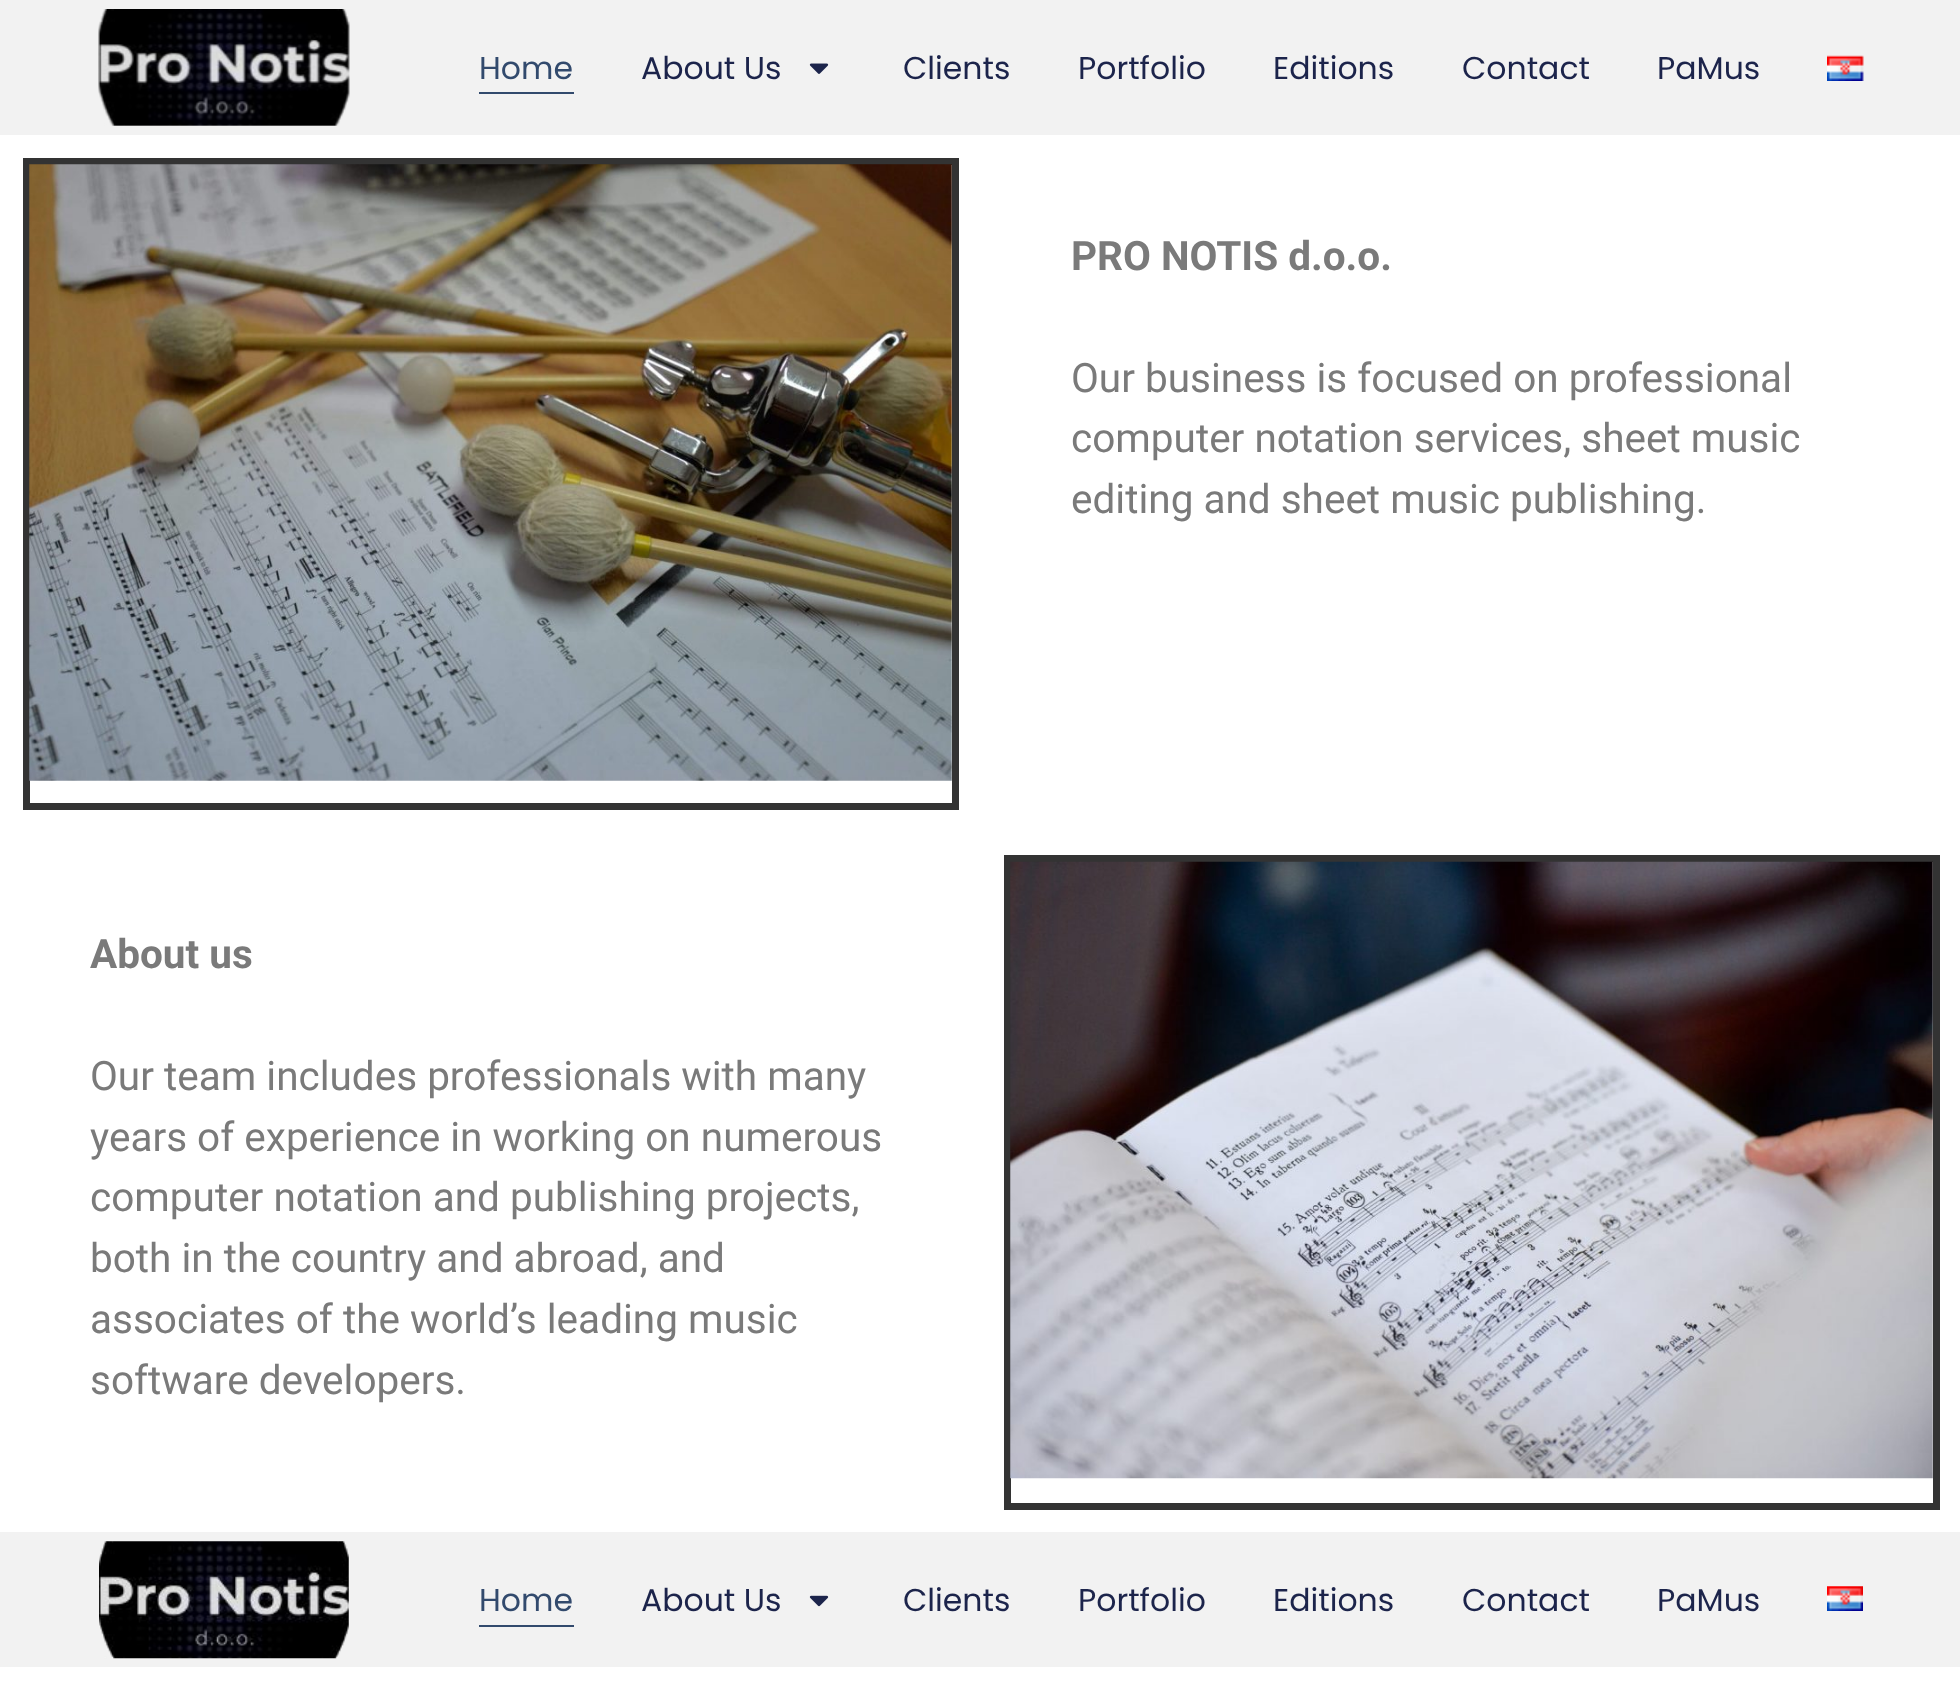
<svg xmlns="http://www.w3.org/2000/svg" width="1960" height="1691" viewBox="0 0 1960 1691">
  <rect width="100%" height="100%" fill="rgb(255,255,255)"/>
  <rect x="0" y="0" width="1960" height="135" fill="rgb(242,242,242)"/>
  <image x="98" y="9" width="252" height="117" href="pic1.png"/>
  <text x="479" y="79" font-family="Poppins" font-size="31.5" fill="rgb(50,74,109)">Home</text>
  <rect x="479" y="92" width="95" height="2" fill="rgb(50,74,109)"/>
  <text x="641" y="79" font-family="Poppins" font-size="31.5" fill="rgb(28,36,75)">About Us</text>
  <image x="809" y="63" width="20" height="11" href="pic2.png"/>
  <g font-family="Poppins" font-size="31.5" fill="rgb(28,36,75)">
    <text x="903" y="79">Clients</text>
    <text x="1078" y="79">Portfolio</text>
    <text x="1273" y="79">Editions</text>
    <text x="1462" y="79">Contact</text>
    <text x="1657" y="79">PaMus</text>
  </g>
  <image x="1827" y="55" width="37" height="26" href="pic3.png"/>
  <rect x="26.5" y="161.5" width="929" height="645" fill="none" stroke="rgb(51,51,51)" stroke-width="7"/>
  <image x="29" y="164" width="923" height="617" href="pic4.png"/>
  <text x="1071" y="270" font-family="Roboto" font-size="40.5" font-weight="bold" fill="rgb(122,122,122)">PRO NOTIS d.o.o.</text>
  <g font-family="Roboto" font-size="40.5" fill="rgb(122,122,122)">
    <text>
      <tspan x="1071" y="392">Our business is focused on professional</tspan>
      <tspan x="1071" y="452">computer notation services, sheet music</tspan>
      <tspan x="1071" y="513">editing and sheet music publishing.</tspan>
    </text>
  </g>
  <text x="90" y="968" font-family="Roboto" font-size="40.5" font-weight="bold" fill="rgb(122,122,122)">About us</text>
  <g font-family="Roboto" font-size="40.5" fill="rgb(122,122,122)">
    <text>
      <tspan x="90" y="1090">Our team includes professionals with many</tspan>
      <tspan x="90" y="1151">years of experience in working on numerous</tspan>
      <tspan x="90" y="1211">computer notation and publishing projects,</tspan>
      <tspan x="90" y="1272">both in the country and abroad, and</tspan>
      <tspan x="90" y="1333">associates of the world’s leading music</tspan>
      <tspan x="90" y="1394">software developers.</tspan>
    </text>
  </g>
  <rect x="1007.5" y="858.5" width="929" height="648" fill="none" stroke="rgb(51,51,51)" stroke-width="7"/>
  <image x="1010" y="861" width="923" height="618" href="pic5.png"/>
  <rect x="0" y="1532" width="1960" height="135" fill="rgb(242,242,242)"/>
  <image x="99" y="1541" width="250" height="118" href="pic6.png"/>
  <text x="479" y="1611" font-family="Poppins" font-size="31.5" fill="rgb(50,74,109)">Home</text>
  <rect x="479" y="1625" width="95" height="2" fill="rgb(50,74,109)"/>
  <text x="641" y="1611" font-family="Poppins" font-size="31.5" fill="rgb(28,36,75)">About Us</text>
  <image x="809" y="1595" width="20" height="12" href="pic7.png"/>
  <g font-family="Poppins" font-size="31.5" fill="rgb(28,36,75)">
    <text x="903" y="1611">Clients</text>
    <text x="1078" y="1611">Portfolio</text>
    <text x="1273" y="1611">Editions</text>
    <text x="1462" y="1611">Contact</text>
    <text x="1657" y="1611">PaMus</text>
  </g>
  <image x="1827" y="1586" width="36" height="25" href="pic8.png"/>
</svg>
